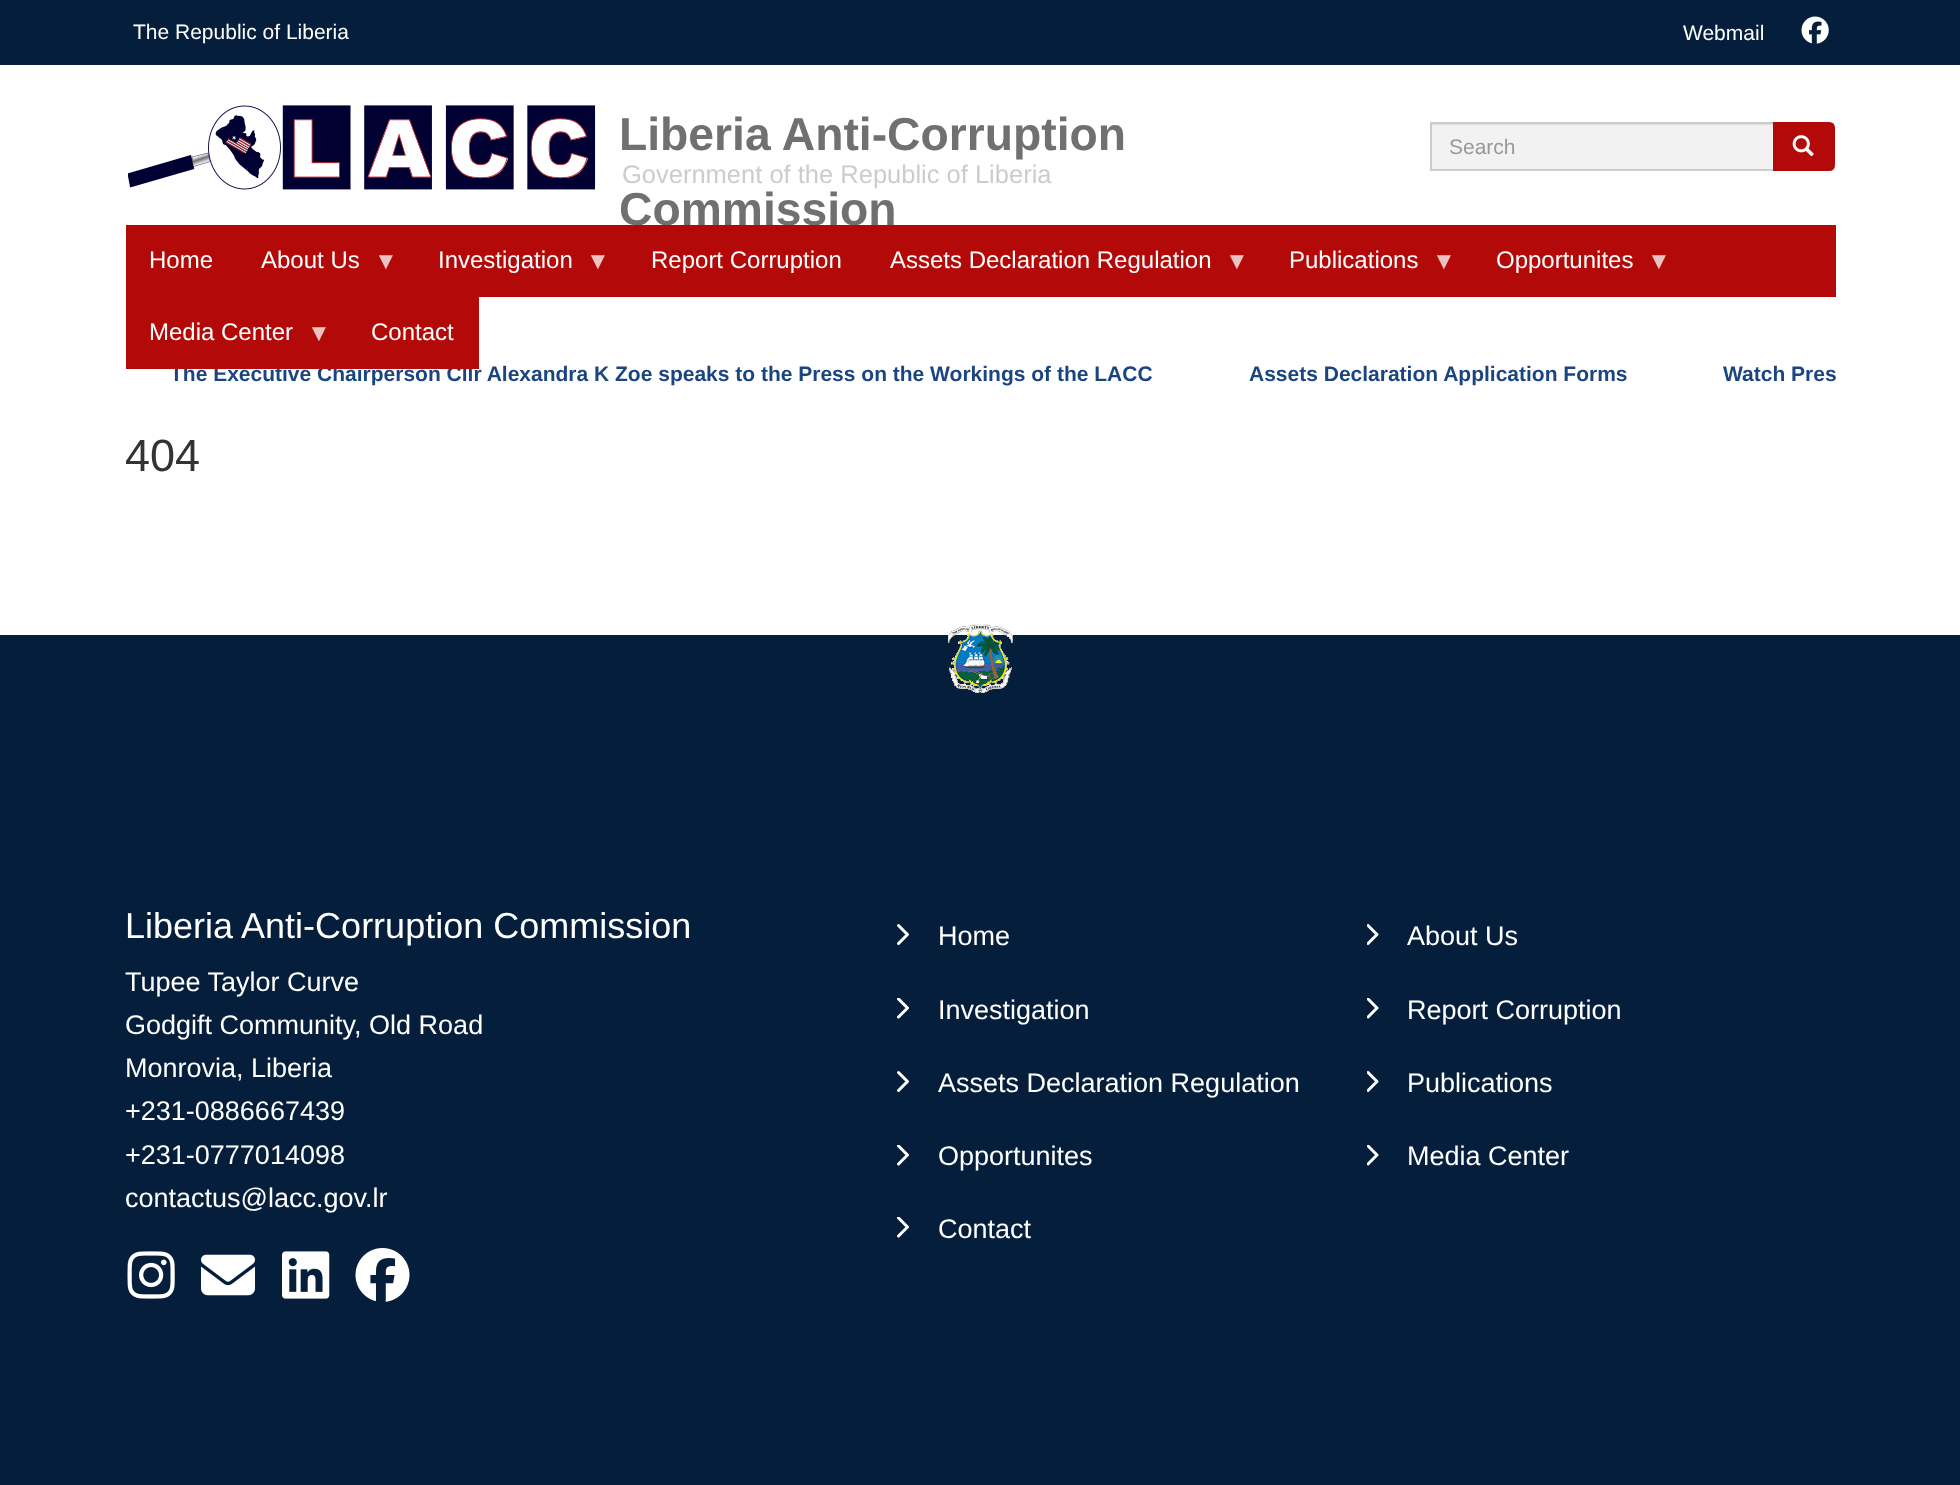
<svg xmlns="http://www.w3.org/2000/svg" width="1960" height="1485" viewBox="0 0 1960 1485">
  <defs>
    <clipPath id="clip1"><rect x="1367" y="924" width="12" height="21"/></clipPath>
    <clipPath id="clip2"><rect x="897" y="998" width="12" height="21"/></clipPath>
    <clipPath id="clip3"><rect x="1367" y="998" width="12" height="21"/></clipPath>
    <clipPath id="clip4"><rect x="1367" y="1071" width="12" height="21"/></clipPath>
    <clipPath id="clip5"><rect x="897" y="1145" width="12" height="21"/></clipPath>
    <clipPath id="clip6"><rect x="1367" y="1145" width="12" height="21"/></clipPath>
    <clipPath id="clip7"><rect x="897" y="1217" width="12" height="21"/></clipPath>
  </defs>
  <rect width="100%" height="100%" fill="rgb(255,255,255)"/>
  <rect x="0" y="0" width="1960" height="65" fill="rgb(5,30,59)"/>
  <g font-family="Liberation Sans" font-size="21" fill="rgb(255,255,255)">
    <text x="133" y="39">The Republic of Liberia</text>
    <text x="1683" y="40">Webmail</text>
  </g>
  <image x="1801" y="16" width="28" height="28" href="pic1.png"/>
  <image x="128" y="105" width="468" height="85" href="pic2.png"/>
  <g font-family="Liberation Sans" font-size="46.25" font-weight="bold" fill="rgb(112,112,112)">
    <text>
      <tspan x="619" y="150">Liberia Anti-Corruption</tspan>
      <tspan x="619" y="225">Commission</tspan>
    </text>
  </g>
  <text x="622" y="183" font-family="Liberation Sans" font-size="25.5" fill="rgb(204,204,204)">Government of the Republic of Liberia</text>
  <rect x="1432" y="125" width="341" height="44" fill="rgb(242,242,242)"/>
  <rect x="1431" y="124" width="342" height="1" fill="rgb(224,224,224)"/>
  <rect x="1431" y="123" width="343" height="47" fill="none" stroke="rgb(204,204,204)" stroke-width="2"/>
  <text x="1449" y="154" font-family="Liberation Sans" font-size="21" fill="rgb(153,153,153)">Search</text>
  <path d="M1774 123H1829C1832 123 1834 125 1834 128V165C1834 168 1832 170 1829 170H1774Z" fill="rgb(180,9,9)" stroke="rgb(180,9,9)" stroke-width="2"/>
  <image x="1792" y="135" width="22" height="22" href="pic3.png"/>
  <rect x="126" y="225" width="1710" height="72" fill="rgb(180,9,9)"/>
  <g font-family="Liberation Sans" font-size="24" fill="rgb(255,255,255)">
    <text x="149" y="268">Home</text>
    <text x="261" y="268">About Us</text>
  </g>
  <text x="374" y="269" font-family="Liberation Sans" font-size="24" fill="rgb(236,194,194)">▼</text>
  <text x="438" y="268" font-family="Liberation Sans" font-size="24" fill="rgb(255,255,255)">Investigation</text>
  <text x="586" y="269" font-family="Liberation Sans" font-size="24" fill="rgb(236,194,194)">▼</text>
  <g font-family="Liberation Sans" font-size="24" fill="rgb(255,255,255)">
    <text x="651" y="268">Report Corruption</text>
    <text x="890" y="268">Assets Declaration Regulation</text>
  </g>
  <text x="1225" y="269" font-family="Liberation Sans" font-size="24" fill="rgb(236,194,194)">▼</text>
  <text x="1289" y="268" font-family="Liberation Sans" font-size="24" fill="rgb(255,255,255)">Publications</text>
  <text x="1432" y="269" font-family="Liberation Sans" font-size="24" fill="rgb(236,194,194)">▼</text>
  <text x="1496" y="268" font-family="Liberation Sans" font-size="24" fill="rgb(255,255,255)">Opportunites</text>
  <text x="1647" y="269" font-family="Liberation Sans" font-size="24" fill="rgb(236,194,194)">▼</text>
  <text x="170" y="381" font-family="Liberation Sans" font-size="21" font-weight="bold" fill="rgb(26,69,128)">The Executive Chairperson Cllr Alexandra K Zoe speaks to the Press on the Workings of the LACC</text>
  <rect x="126" y="297" width="353" height="72" fill="rgb(180,9,9)"/>
  <text x="149" y="340" font-family="Liberation Sans" font-size="24" fill="rgb(255,255,255)">Media Center</text>
  <text x="307" y="341" font-family="Liberation Sans" font-size="24" fill="rgb(236,194,194)">▼</text>
  <text x="371" y="340" font-family="Liberation Sans" font-size="24" fill="rgb(255,255,255)">Contact</text>
  <g font-family="Liberation Sans" font-size="21" font-weight="bold" fill="rgb(26,69,128)">
    <text x="1249" y="381">Assets Declaration Application Forms</text>
    <text x="1723" y="381">Watch Pres</text>
  </g>
  <text x="125" y="471" font-family="Liberation Sans" font-size="45" fill="rgb(51,51,51)">404</text>
  <rect x="0" y="635" width="1960" height="850" fill="rgb(5,30,59)"/>
  <image x="948" y="624" width="65" height="69" href="pic4.png"/>
  <text x="125" y="938" font-family="Liberation Sans" font-size="36" fill="rgb(255,255,255)">Liberia Anti-Corruption Commission</text>
  <g font-family="Liberation Sans" font-size="27" fill="rgb(255,255,255)">
    <text>
      <tspan x="125" y="991">Tupee Taylor Curve</tspan>
      <tspan x="125" y="1034">Godgift Community, Old Road</tspan>
      <tspan x="125" y="1077">Monrovia, Liberia</tspan>
      <tspan x="125" y="1120">+231-0886667439</tspan>
      <tspan x="125" y="1164">+231-0777014098</tspan>
      <tspan x="125" y="1207">contactus@lacc.gov.lr</tspan>
    </text>
  </g>
  <image x="127" y="1251" width="48" height="48" href="pic5.png"/>
  <image x="201" y="1254" width="54" height="42" href="pic6.png"/>
  <image x="282" y="1251" width="48" height="48" href="pic7.png"/>
  <image x="355" y="1248" width="55" height="54" href="pic8.png"/>
  <path d="M898.5 925.5L907.5 934.5L898.5 943.5" fill="none" stroke="rgb(255,255,255)" stroke-width="3" stroke-linecap="round" stroke-linejoin="round"/>
  <text x="938" y="945" font-family="Liberation Sans" font-size="27" fill="rgb(255,255,255)">Home</text>
  <g clip-path="url(#clip1)">
    <path d="M1368 925.5L1377 934.5L1368 943.5" fill="none" stroke="rgb(255,255,255)" stroke-width="3" stroke-linecap="round" stroke-linejoin="round"/>
  </g>
  <text x="1407" y="945" font-family="Liberation Sans" font-size="27" fill="rgb(255,255,255)">About Us</text>
  <g clip-path="url(#clip2)">
    <path d="M898.5 999L907.5 1008L898.5 1017" fill="none" stroke="rgb(255,255,255)" stroke-width="3" stroke-linecap="round" stroke-linejoin="round"/>
  </g>
  <text x="938" y="1019" font-family="Liberation Sans" font-size="27" fill="rgb(255,255,255)">Investigation</text>
  <g clip-path="url(#clip3)">
    <path d="M1368 999L1377 1008L1368 1017" fill="none" stroke="rgb(255,255,255)" stroke-width="3" stroke-linecap="round" stroke-linejoin="round"/>
  </g>
  <text x="1407" y="1019" font-family="Liberation Sans" font-size="27" fill="rgb(255,255,255)">Report Corruption</text>
  <path d="M898.5 1072.5L907.5 1081.5L898.5 1090.5" fill="none" stroke="rgb(255,255,255)" stroke-width="3" stroke-linecap="round" stroke-linejoin="round"/>
  <text x="938" y="1092" font-family="Liberation Sans" font-size="27" fill="rgb(255,255,255)">Assets Declaration Regulation</text>
  <g clip-path="url(#clip4)">
    <path d="M1368 1072.5L1377 1081.5L1368 1090.5" fill="none" stroke="rgb(255,255,255)" stroke-width="3" stroke-linecap="round" stroke-linejoin="round"/>
  </g>
  <text x="1407" y="1092" font-family="Liberation Sans" font-size="27" fill="rgb(255,255,255)">Publications</text>
  <g clip-path="url(#clip5)">
    <path d="M898.5 1146L907.5 1155L898.5 1164" fill="none" stroke="rgb(255,255,255)" stroke-width="3" stroke-linecap="round" stroke-linejoin="round"/>
  </g>
  <text x="938" y="1165" font-family="Liberation Sans" font-size="27" fill="rgb(255,255,255)">Opportunites</text>
  <g clip-path="url(#clip6)">
    <path d="M1368 1146L1377 1155L1368 1164" fill="none" stroke="rgb(255,255,255)" stroke-width="3" stroke-linecap="round" stroke-linejoin="round"/>
  </g>
  <text x="1407" y="1165" font-family="Liberation Sans" font-size="27" fill="rgb(255,255,255)">Media Center</text>
  <g clip-path="url(#clip7)">
    <path d="M898.5 1218L907.5 1227L898.5 1236" fill="none" stroke="rgb(255,255,255)" stroke-width="3" stroke-linecap="round" stroke-linejoin="round"/>
  </g>
  <text x="938" y="1238" font-family="Liberation Sans" font-size="27" fill="rgb(255,255,255)">Contact</text>
</svg>
